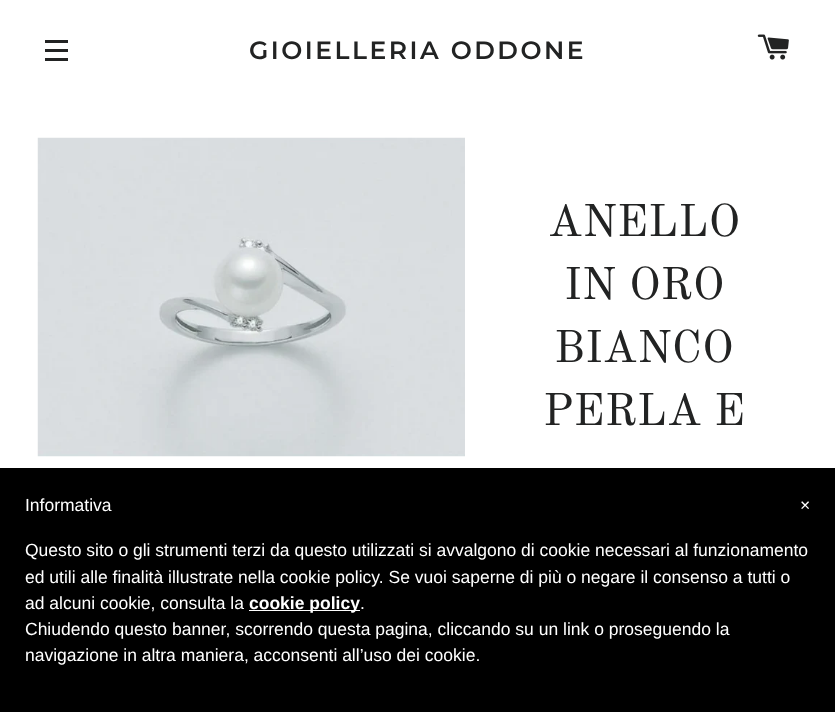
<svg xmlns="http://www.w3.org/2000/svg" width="835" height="712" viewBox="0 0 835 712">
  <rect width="100%" height="100%" fill="rgb(255,255,255)"/>
  <rect x="45" y="40" width="23" height="3" fill="rgb(34,35,35)"/>
  <rect x="45" y="49" width="23" height="3" fill="rgb(34,35,35)"/>
  <rect x="45" y="58" width="23" height="3" fill="rgb(34,35,35)"/>
  <text x="249" y="59" font-family="Montserrat" font-size="25" font-weight="600" letter-spacing="2.5" fill="rgb(34,35,35)">GIOIELLERIA ODDONE</text>
  <image x="757" y="34" width="32" height="26" href="pic1.png"/>
  <image x="37" y="137" width="428" height="320" href="pic2.png"/>
  <g font-family="Old Standard TT" font-size="45" fill="rgb(34,35,35)">
    <text x="548" y="236">ANELLO</text>
    <text x="564" y="299">IN ORO</text>
    <text x="554" y="362">BIANCO</text>
    <text x="543" y="425">PERLA E</text>
  </g>
  <rect x="0" y="468" width="835" height="244" fill="rgb(0,0,0)"/>
  <g font-family="Liberation Sans" font-size="17.5" fill="rgb(255,255,255)">
    <text x="25" y="511">Informativa</text>
    <text>
      <tspan x="25" y="556">Questo sito o gli strumenti terzi da questo utilizzati si avvalgono di cookie necessari al funzionamento</tspan>
      <tspan x="25" y="583">ed utili alle finalità illustrate nella cookie policy. Se vuoi saperne di più o negare il consenso a tutti o</tspan>
      <tspan x="25" y="609">ad alcuni cookie, consulta la</tspan>
    </text>
  </g>
  <rect x="249" y="610" width="111" height="1" fill="rgb(255,255,255)"/>
  <text x="249" y="609" font-family="Liberation Sans" font-size="17.5" font-weight="bold" fill="rgb(255,255,255)">cookie policy</text>
  <g font-family="Liberation Sans" font-size="17.5" fill="rgb(255,255,255)">
    <text x="360" y="609">.</text>
    <text>
      <tspan x="25" y="635">Chiudendo questo banner, scorrendo questa pagina, cliccando su un link o proseguendo la</tspan>
      <tspan x="25" y="661">navigazione in altra maniera, acconsenti all’uso dei cookie.</tspan>
    </text>
    <text x="800" y="511">×</text>
  </g>
</svg>
